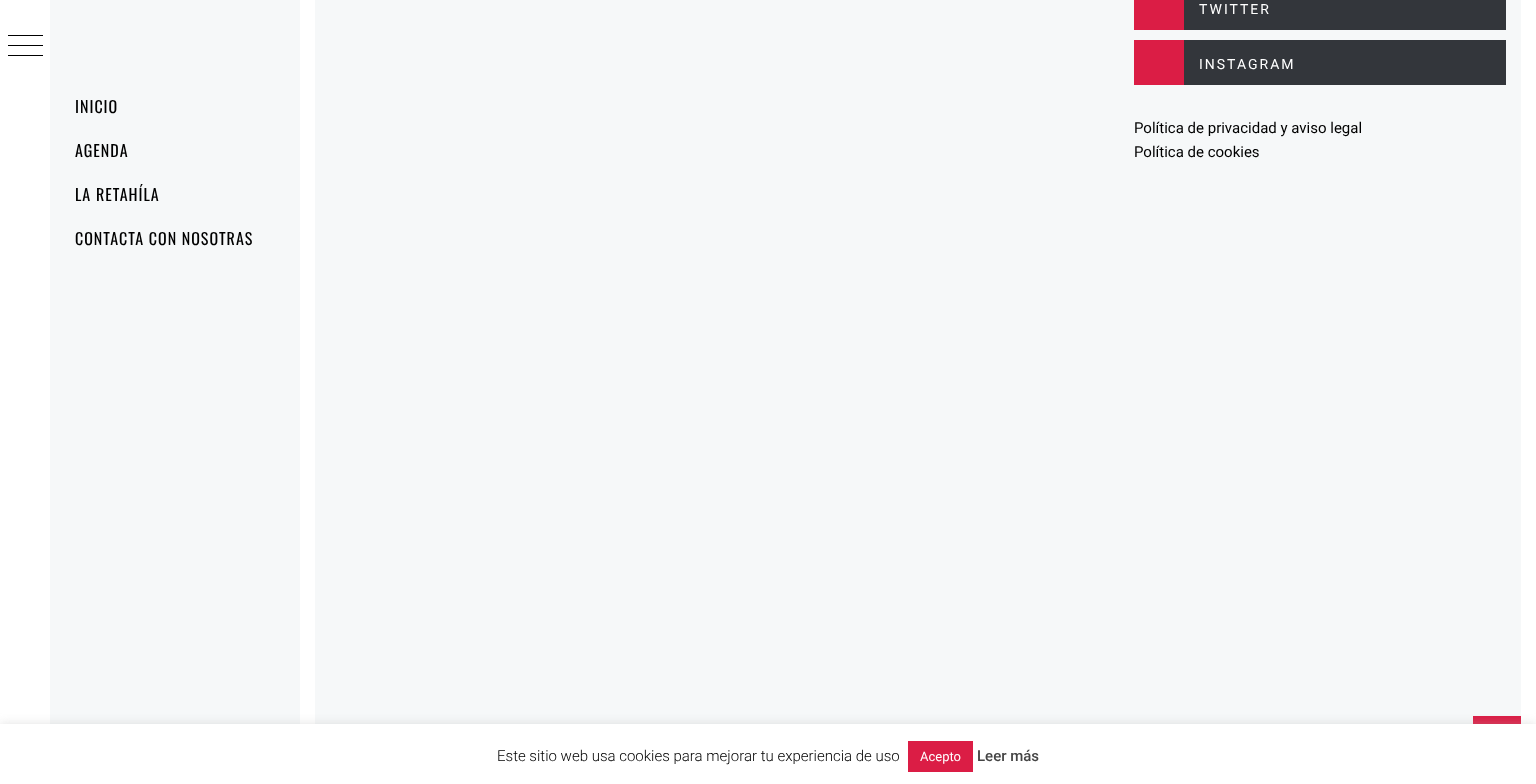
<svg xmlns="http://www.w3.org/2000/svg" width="1536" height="784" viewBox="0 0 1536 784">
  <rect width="100%" height="100%" fill="rgb(255,255,255)"/>
  <rect x="8" y="35" width="35" height="1" fill="rgb(0,0,0)"/>
  <rect x="8" y="45" width="35" height="1" fill="rgb(0,0,0)"/>
  <rect x="8" y="55" width="35" height="1" fill="rgb(0,0,0)"/>
  <rect x="50" y="0" width="250" height="724" fill="rgb(246,248,249)"/>
  <g font-family="Oswald" font-size="16" letter-spacing="1" fill="rgb(0,0,0)">
    <text x="75" y="113">INICIO</text>
    <text x="75" y="157">AGENDA</text>
    <text x="75" y="201">LA RETAHÍLA</text>
    <text x="75" y="245">CONTACTA CON NOSOTRAS</text>
  </g>
  <rect x="315" y="0" width="1206" height="724" fill="rgb(246,248,249)"/>
  <rect x="1184" y="0" width="322" height="30" fill="rgb(51,54,59)"/>
  <rect x="1134" y="0" width="50" height="30" fill="rgb(219,29,69)"/>
  <text x="1199" y="14" font-family="Roboto" font-size="14" letter-spacing="2" fill="rgb(255,255,255)">TWITTER</text>
  <rect x="1184" y="40" width="322" height="45" fill="rgb(51,54,59)"/>
  <rect x="1134" y="40" width="50" height="45" fill="rgb(219,29,69)"/>
  <text x="1199" y="69" font-family="Roboto" font-size="14" letter-spacing="2" fill="rgb(255,255,255)">INSTAGRAM</text>
  <g font-family="Roboto" font-size="15" fill="rgb(0,0,0)">
    <text>
      <tspan x="1134" y="133">Política de privacidad y aviso legal</tspan>
      <tspan x="1134" y="157">Política de cookies</tspan>
    </text>
  </g>
  <rect x="1473" y="716" width="48" height="8" fill="rgb(219,29,69)"/>
  <rect x="0" y="723" width="1536" height="60" fill="rgba(172,171,171,0.3)" filter="blur(5px)"/>
  <rect x="0" y="724" width="1536" height="60" fill="rgb(255,255,255)"/>
  <text x="497" y="761" font-family="Roboto" font-size="15" font-weight="300" fill="rgb(0,0,0)">Este sitio web usa cookies para mejorar tu experiencia de uso</text>
  <rect x="908" y="741" width="65" height="31" fill="rgb(219,29,69)"/>
  <text x="920" y="761" font-family="Roboto" font-size="13" fill="rgb(255,255,255)">Acepto</text>
  <text x="977" y="761" font-family="Roboto" font-size="15" font-weight="500" fill="rgb(68,68,68)">Leer más</text>
</svg>
